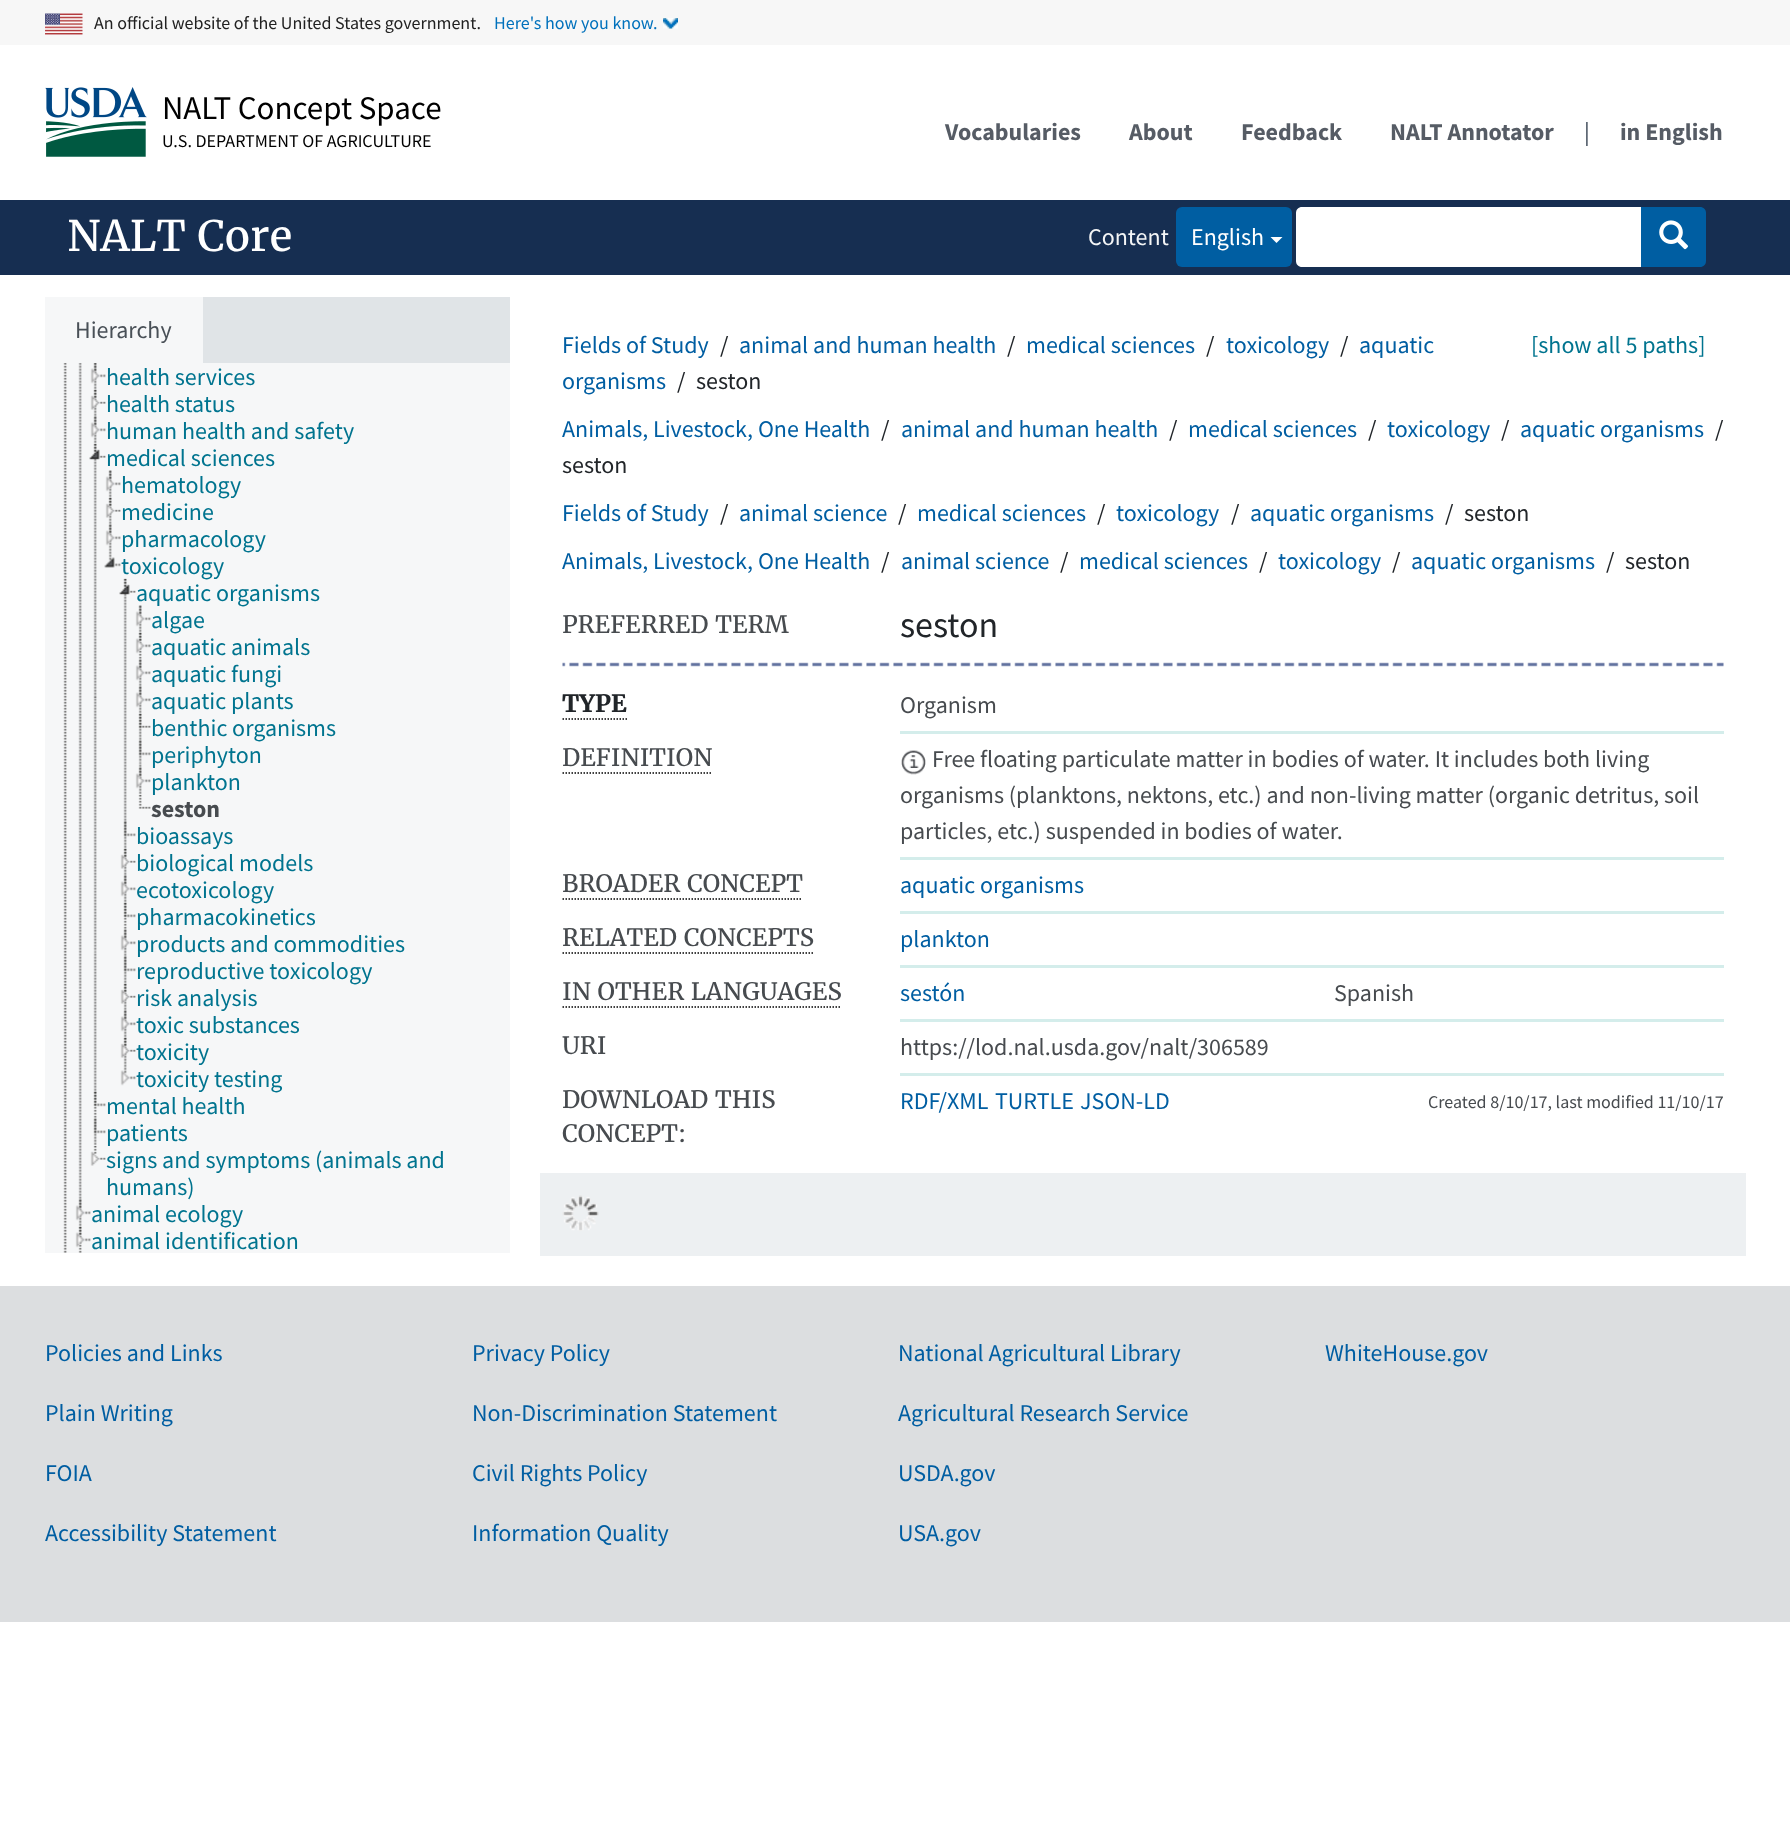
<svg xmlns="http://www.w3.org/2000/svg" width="1790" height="1829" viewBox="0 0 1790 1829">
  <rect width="100%" height="100%" fill="rgb(255,255,255)"/>
  <rect x="0" y="0" width="1790" height="45" fill="rgb(247,247,247)"/>
  <image x="45" y="13" width="38" height="22" href="pic1.png"/>
  <text x="94" y="29" font-family="Source Sans Pro" font-size="18" fill="rgb(33,33,33)">An official website of the United States government.</text>
  <image x="663" y="18" width="15" height="11" href="pic2.png"/>
  <text x="494" y="29" font-family="Source Sans Pro" font-size="18" fill="rgb(0,113,188)">Here's how you know.</text>
  <image x="45" y="87" width="102" height="70" href="pic3.png"/>
  <text x="162" y="119" font-family="Source Sans Pro" font-size="33" fill="rgb(0,0,0)">NALT Concept Space</text>
  <text x="162" y="147" font-family="Source Sans Pro" font-size="18" fill="rgb(0,0,0)">U.S. DEPARTMENT OF AGRICULTURE</text>
  <g font-family="Source Sans Pro" font-size="24" font-weight="bold" fill="rgb(86,92,101)">
    <text x="945" y="140">Vocabularies</text>
    <text x="1129" y="140">About</text>
    <text x="1241" y="140">Feedback</text>
    <text x="1390" y="140">NALT Annotator</text>
  </g>
  <text x="1584" y="140" font-family="Source Sans Pro" font-size="24" fill="rgb(57,69,84)">|</text>
  <text x="1620" y="140" font-family="Source Sans Pro" font-size="24" font-weight="bold" fill="rgb(86,92,101)">in English</text>
  <rect x="0" y="200" width="1790" height="75" fill="rgb(22,46,81)"/>
  <text x="67" y="251" font-family="Merriweather" font-size="42" fill="rgb(255,255,255)">NALT Core</text>
  <text x="1088" y="245" font-family="Source Sans Pro" font-size="24" fill="rgb(243,245,246)">Content</text>
  <rect x="1176" y="207" width="116" height="60" rx="6" fill="rgb(0,94,162)"/>
  <text x="1191" y="245" font-family="Source Sans Pro" font-size="24" fill="rgb(255,255,255)">English</text>
  <path d="M1270.5 237H1282.5L1276.5 243Z" fill="rgb(255,255,255)"/>
  <path d="M1302 207H1643V267H1302C1298.5 267 1296 264.5 1296 261V213C1296 209.5 1298.5 207 1302 207Z" fill="rgb(255,255,255)"/>
  <path d="M1641 207H1700C1703.5 207 1706 209.5 1706 213V261C1706 264.5 1703.5 267 1700 267H1641Z" fill="rgb(0,94,162)"/>
  <image x="1659" y="220" width="29" height="30" href="pic4.png"/>
  <rect x="203" y="297" width="307" height="66" fill="rgb(224,228,231)"/>
  <rect x="45" y="297" width="158" height="66" fill="rgb(246,247,248)"/>
  <text x="75" y="338" font-family="Source Sans Pro" font-size="24" fill="rgb(73,80,87)">Hierarchy</text>
  <rect x="45" y="363" width="465" height="890" fill="rgb(246,247,248)"/>
  <image x="63" y="363" width="4" height="890" href="pic5.png"/>
  <image x="78" y="363" width="4" height="838" href="pic6.png"/>
  <image x="93" y="363" width="4" height="27" href="pic7.png"/>
  <image x="90" y="363" width="16" height="21" href="pic8.png"/>
  <text x="106" y="385" font-family="Source Sans Pro" font-size="24" fill="rgb(0,116,143)">health services</text>
  <image x="93" y="389" width="4" height="28" href="pic9.png"/>
  <image x="90" y="390" width="16" height="20" href="pic10.png"/>
  <text x="106" y="412" font-family="Source Sans Pro" font-size="24" fill="rgb(0,116,143)">health status</text>
  <image x="93" y="416" width="4" height="28" href="pic9.png"/>
  <image x="90" y="416" width="16" height="22" href="pic11.png"/>
  <text x="106" y="439" font-family="Source Sans Pro" font-size="24" fill="rgb(0,116,143)">human health and safety</text>
  <image x="93" y="443" width="4" height="650" href="pic12.png"/>
  <image x="89" y="444" width="17" height="16" href="pic13.png"/>
  <text x="106" y="466" font-family="Source Sans Pro" font-size="24" fill="rgb(0,116,143)">medical sciences</text>
  <image x="108" y="470" width="4" height="28" href="pic14.png"/>
  <image x="105" y="470" width="16" height="22" href="pic15.png"/>
  <text x="121" y="493" font-family="Source Sans Pro" font-size="24" fill="rgb(0,116,143)">hematology</text>
  <image x="108" y="497" width="4" height="28" href="pic9.png"/>
  <image x="105" y="498" width="16" height="20" href="pic10.png"/>
  <text x="121" y="520" font-family="Source Sans Pro" font-size="24" fill="rgb(0,116,143)">medicine</text>
  <image x="108" y="524" width="4" height="28" href="pic9.png"/>
  <image x="105" y="524" width="16" height="22" href="pic11.png"/>
  <text x="121" y="547" font-family="Source Sans Pro" font-size="24" fill="rgb(0,116,143)">pharmacology</text>
  <image x="104" y="551" width="17" height="17" href="pic16.png"/>
  <image x="123" y="578" width="4" height="245" href="pic17.png"/>
  <text x="121" y="574" font-family="Source Sans Pro" font-size="24" fill="rgb(0,116,143)">toxicology</text>
  <image x="119" y="579" width="17" height="16" href="pic13.png"/>
  <image x="138" y="605" width="4" height="28" href="pic18.png"/>
  <text x="136" y="601" font-family="Source Sans Pro" font-size="24" fill="rgb(0,116,143)">aquatic organisms</text>
  <image x="135" y="605" width="16" height="22" href="pic19.png"/>
  <text x="151" y="628" font-family="Source Sans Pro" font-size="24" fill="rgb(0,116,143)">algae</text>
  <image x="138" y="633" width="4" height="26" href="pic20.png"/>
  <image x="135" y="632" width="16" height="22" href="pic21.png"/>
  <text x="151" y="655" font-family="Source Sans Pro" font-size="24" fill="rgb(0,116,143)">aquatic animals</text>
  <image x="138" y="659" width="4" height="28" href="pic18.png"/>
  <image x="135" y="659" width="16" height="22" href="pic19.png"/>
  <text x="151" y="682" font-family="Source Sans Pro" font-size="24" fill="rgb(0,116,143)">aquatic fungi</text>
  <image x="138" y="686" width="4" height="28" href="pic9.png"/>
  <image x="135" y="686" width="16" height="22" href="pic11.png"/>
  <text x="151" y="709" font-family="Source Sans Pro" font-size="24" fill="rgb(0,116,143)">aquatic plants</text>
  <image x="138" y="713" width="4" height="28" href="pic9.png"/>
  <image x="138" y="714" width="13" height="14" href="pic22.png"/>
  <text x="151" y="736" font-family="Source Sans Pro" font-size="24" fill="rgb(0,116,143)">benthic organisms</text>
  <image x="138" y="740" width="4" height="28" href="pic23.png"/>
  <image x="138" y="740" width="13" height="16" href="pic24.png"/>
  <text x="151" y="763" font-family="Source Sans Pro" font-size="24" fill="rgb(0,116,143)">periphyton</text>
  <image x="138" y="767" width="4" height="28" href="pic9.png"/>
  <image x="135" y="767" width="16" height="22" href="pic25.png"/>
  <text x="151" y="790" font-family="Source Sans Pro" font-size="24" fill="rgb(0,116,143)">plankton</text>
  <image x="138" y="795" width="13" height="14" href="pic26.png"/>
  <text x="151" y="817" font-family="Source Sans Pro" font-size="24" font-weight="bold" fill="rgb(71,75,79)">seston</text>
  <image x="123" y="821" width="4" height="28" href="pic27.png"/>
  <image x="123" y="821" width="13" height="16" href="pic28.png"/>
  <text x="136" y="844" font-family="Source Sans Pro" font-size="24" fill="rgb(0,116,143)">bioassays</text>
  <image x="123" y="848" width="4" height="28" href="pic9.png"/>
  <image x="120" y="849" width="16" height="20" href="pic10.png"/>
  <text x="136" y="871" font-family="Source Sans Pro" font-size="24" fill="rgb(0,116,143)">biological models</text>
  <image x="123" y="875" width="4" height="28" href="pic9.png"/>
  <image x="120" y="875" width="16" height="22" href="pic11.png"/>
  <text x="136" y="898" font-family="Source Sans Pro" font-size="24" fill="rgb(0,116,143)">ecotoxicology</text>
  <image x="123" y="903" width="4" height="26" href="pic20.png"/>
  <image x="123" y="902" width="13" height="16" href="pic29.png"/>
  <text x="136" y="925" font-family="Source Sans Pro" font-size="24" fill="rgb(0,116,143)">pharmacokinetics</text>
  <image x="123" y="929" width="4" height="28" href="pic18.png"/>
  <image x="120" y="929" width="16" height="22" href="pic19.png"/>
  <text x="136" y="952" font-family="Source Sans Pro" font-size="24" fill="rgb(0,116,143)">products and commodities</text>
  <image x="123" y="956" width="4" height="28" href="pic9.png"/>
  <image x="123" y="956" width="13" height="16" href="pic24.png"/>
  <text x="136" y="979" font-family="Source Sans Pro" font-size="24" fill="rgb(0,116,143)">reproductive toxicology</text>
  <image x="123" y="983" width="4" height="28" href="pic9.png"/>
  <image x="120" y="984" width="16" height="20" href="pic10.png"/>
  <text x="136" y="1006" font-family="Source Sans Pro" font-size="24" fill="rgb(0,116,143)">risk analysis</text>
  <image x="123" y="1010" width="4" height="28" href="pic9.png"/>
  <image x="120" y="1010" width="16" height="22" href="pic11.png"/>
  <text x="136" y="1033" font-family="Source Sans Pro" font-size="24" fill="rgb(0,116,143)">toxic substances</text>
  <image x="123" y="1037" width="4" height="28" href="pic9.png"/>
  <image x="120" y="1038" width="16" height="20" href="pic10.png"/>
  <text x="136" y="1060" font-family="Source Sans Pro" font-size="24" fill="rgb(0,116,143)">toxicity</text>
  <image x="120" y="1064" width="16" height="22" href="pic30.png"/>
  <text x="136" y="1087" font-family="Source Sans Pro" font-size="24" fill="rgb(0,116,143)">toxicity testing</text>
  <image x="93" y="1092" width="4" height="26" href="pic31.png"/>
  <image x="93" y="1091" width="13" height="16" href="pic32.png"/>
  <text x="106" y="1114" font-family="Source Sans Pro" font-size="24" fill="rgb(0,116,143)">mental health</text>
  <image x="93" y="1118" width="4" height="28" href="pic18.png"/>
  <image x="93" y="1118" width="13" height="16" href="pic33.png"/>
  <text x="106" y="1141" font-family="Source Sans Pro" font-size="24" fill="rgb(0,116,143)">patients</text>
  <image x="90" y="1146" width="16" height="20" href="pic34.png"/>
  <g font-family="Source Sans Pro" font-size="24" fill="rgb(0,116,143)">
    <text>
      <tspan x="106" y="1168">signs and symptoms (animals and</tspan>
      <tspan x="106" y="1195">humans)</tspan>
    </text>
  </g>
  <image x="78" y="1199" width="4" height="28" href="pic27.png"/>
  <image x="75" y="1199" width="16" height="22" href="pic35.png"/>
  <text x="91" y="1222" font-family="Source Sans Pro" font-size="24" fill="rgb(0,116,143)">animal ecology</text>
  <image x="78" y="1227" width="4" height="26" href="pic20.png"/>
  <image x="75" y="1226" width="16" height="22" href="pic36.png"/>
  <text x="91" y="1249" font-family="Source Sans Pro" font-size="24" fill="rgb(0,116,143)">animal identification</text>
  <text x="562" y="353" font-family="Source Sans Pro" font-size="24" fill="rgb(0,94,162)">Fields of Study</text>
  <text x="720" y="353" font-family="Source Sans Pro" font-size="24" fill="rgb(33,37,41)">/</text>
  <text x="739" y="353" font-family="Source Sans Pro" font-size="24" fill="rgb(0,94,162)">animal and human health</text>
  <text x="1007" y="353" font-family="Source Sans Pro" font-size="24" fill="rgb(33,37,41)">/</text>
  <text x="1026" y="353" font-family="Source Sans Pro" font-size="24" fill="rgb(0,94,162)">medical sciences</text>
  <text x="1206" y="353" font-family="Source Sans Pro" font-size="24" fill="rgb(33,37,41)">/</text>
  <text x="1226" y="353" font-family="Source Sans Pro" font-size="24" fill="rgb(0,94,162)">toxicology</text>
  <text x="1340" y="353" font-family="Source Sans Pro" font-size="24" fill="rgb(33,37,41)">/</text>
  <g font-family="Source Sans Pro" font-size="24" fill="rgb(0,94,162)">
    <text x="1359" y="353">aquatic</text>
    <text x="562" y="389">organisms</text>
  </g>
  <g font-family="Source Sans Pro" font-size="24" fill="rgb(33,37,41)">
    <text x="677" y="389">/</text>
    <text x="696" y="389">seston</text>
  </g>
  <text x="1531" y="353" font-family="Source Sans Pro" font-size="24" fill="rgb(0,116,143)">[show all 5 paths]</text>
  <text x="562" y="437" font-family="Source Sans Pro" font-size="24" fill="rgb(0,94,162)">Animals, Livestock, One Health</text>
  <text x="881" y="437" font-family="Source Sans Pro" font-size="24" fill="rgb(33,37,41)">/</text>
  <text x="901" y="437" font-family="Source Sans Pro" font-size="24" fill="rgb(0,94,162)">animal and human health</text>
  <text x="1169" y="437" font-family="Source Sans Pro" font-size="24" fill="rgb(33,37,41)">/</text>
  <text x="1188" y="437" font-family="Source Sans Pro" font-size="24" fill="rgb(0,94,162)">medical sciences</text>
  <text x="1368" y="437" font-family="Source Sans Pro" font-size="24" fill="rgb(33,37,41)">/</text>
  <text x="1387" y="437" font-family="Source Sans Pro" font-size="24" fill="rgb(0,94,162)">toxicology</text>
  <text x="1501" y="437" font-family="Source Sans Pro" font-size="24" fill="rgb(33,37,41)">/</text>
  <text x="1520" y="437" font-family="Source Sans Pro" font-size="24" fill="rgb(0,94,162)">aquatic organisms</text>
  <g font-family="Source Sans Pro" font-size="24" fill="rgb(33,37,41)">
    <text x="1715" y="437">/</text>
    <text x="562" y="473">seston</text>
  </g>
  <text x="562" y="521" font-family="Source Sans Pro" font-size="24" fill="rgb(0,94,162)">Fields of Study</text>
  <text x="720" y="521" font-family="Source Sans Pro" font-size="24" fill="rgb(33,37,41)">/</text>
  <text x="739" y="521" font-family="Source Sans Pro" font-size="24" fill="rgb(0,94,162)">animal science</text>
  <text x="898" y="521" font-family="Source Sans Pro" font-size="24" fill="rgb(33,37,41)">/</text>
  <text x="917" y="521" font-family="Source Sans Pro" font-size="24" fill="rgb(0,94,162)">medical sciences</text>
  <text x="1097" y="521" font-family="Source Sans Pro" font-size="24" fill="rgb(33,37,41)">/</text>
  <text x="1116" y="521" font-family="Source Sans Pro" font-size="24" fill="rgb(0,94,162)">toxicology</text>
  <text x="1231" y="521" font-family="Source Sans Pro" font-size="24" fill="rgb(33,37,41)">/</text>
  <text x="1250" y="521" font-family="Source Sans Pro" font-size="24" fill="rgb(0,94,162)">aquatic organisms</text>
  <g font-family="Source Sans Pro" font-size="24" fill="rgb(33,37,41)">
    <text x="1445" y="521">/</text>
    <text x="1464" y="521">seston</text>
  </g>
  <text x="562" y="569" font-family="Source Sans Pro" font-size="24" fill="rgb(0,94,162)">Animals, Livestock, One Health</text>
  <text x="881" y="569" font-family="Source Sans Pro" font-size="24" fill="rgb(33,37,41)">/</text>
  <text x="901" y="569" font-family="Source Sans Pro" font-size="24" fill="rgb(0,94,162)">animal science</text>
  <text x="1060" y="569" font-family="Source Sans Pro" font-size="24" fill="rgb(33,37,41)">/</text>
  <text x="1079" y="569" font-family="Source Sans Pro" font-size="24" fill="rgb(0,94,162)">medical sciences</text>
  <text x="1259" y="569" font-family="Source Sans Pro" font-size="24" fill="rgb(33,37,41)">/</text>
  <text x="1278" y="569" font-family="Source Sans Pro" font-size="24" fill="rgb(0,94,162)">toxicology</text>
  <text x="1392" y="569" font-family="Source Sans Pro" font-size="24" fill="rgb(33,37,41)">/</text>
  <text x="1411" y="569" font-family="Source Sans Pro" font-size="24" fill="rgb(0,94,162)">aquatic organisms</text>
  <g font-family="Source Sans Pro" font-size="24" fill="rgb(33,37,41)">
    <text x="1606" y="569">/</text>
    <text x="1625" y="569">seston</text>
  </g>
  <text x="562" y="633" font-family="Merriweather" font-size="24" fill="rgb(71,75,79)">PREFERRED TERM</text>
  <text x="900" y="637" font-family="Source Sans Pro" font-size="36" fill="rgb(33,37,41)">seston</text>
  <image x="562" y="662" width="1162" height="5" href="pic37.png"/>
  <text x="562" y="712" font-family="Merriweather" font-size="24" font-weight="bold" fill="rgb(33,37,41)">TYPE</text>
  <path d="M562.5 719H627" fill="none" stroke="rgb(0,0,0)" stroke-width="1.5" stroke-dasharray="1.5 1.5"/>
  <rect x="900" y="731" width="824" height="3" fill="rgb(212,237,235)"/>
  <text x="900" y="713" font-family="Source Sans Pro" font-size="24" fill="rgb(71,75,79)">Organism</text>
  <text x="562" y="766" font-family="Merriweather" font-size="24" fill="rgb(71,75,79)">DEFINITION</text>
  <path d="M562.5 773H712.5" fill="none" stroke="rgb(0,0,0)" stroke-width="1.5" stroke-dasharray="1.5 1.5"/>
  <rect x="900" y="857" width="824" height="3" fill="rgb(212,237,235)"/>
  <image x="901" y="750" width="25" height="25" href="pic38.png"/>
  <g font-family="Source Sans Pro" font-size="24" fill="rgb(71,75,79)">
    <text x="932" y="767">Free floating particulate matter in bodies of water. It includes both living</text>
    <text>
      <tspan x="900" y="803">organisms (planktons, nektons, etc.) and non-living matter (organic detritus, soil</tspan>
      <tspan x="900" y="839">particles, etc.) suspended in bodies of water.</tspan>
    </text>
  </g>
  <text x="562" y="892" font-family="Merriweather" font-size="24" fill="rgb(71,75,79)">BROADER CONCEPT</text>
  <path d="M562.5 899H802.5" fill="none" stroke="rgb(0,0,0)" stroke-width="1.5" stroke-dasharray="1.5 1.5"/>
  <rect x="900" y="911" width="824" height="3" fill="rgb(212,237,235)"/>
  <text x="900" y="893" font-family="Source Sans Pro" font-size="24" fill="rgb(0,94,162)">aquatic organisms</text>
  <text x="562" y="946" font-family="Merriweather" font-size="24" fill="rgb(71,75,79)">RELATED CONCEPTS</text>
  <path d="M562.5 953H814.5" fill="none" stroke="rgb(0,0,0)" stroke-width="1.5" stroke-dasharray="1.5 1.5"/>
  <rect x="900" y="965" width="824" height="3" fill="rgb(212,237,235)"/>
  <text x="900" y="947" font-family="Source Sans Pro" font-size="24" fill="rgb(0,94,162)">plankton</text>
  <text x="562" y="1000" font-family="Merriweather" font-size="24" fill="rgb(71,75,79)">IN OTHER LANGUAGES</text>
  <path d="M562.5 1007H841.5" fill="none" stroke="rgb(0,0,0)" stroke-width="1.5" stroke-dasharray="1.5 1.5"/>
  <rect x="900" y="1019" width="824" height="3" fill="rgb(212,237,235)"/>
  <text x="900" y="1001" font-family="Source Sans Pro" font-size="24" fill="rgb(0,94,162)">sestón</text>
  <text x="1334" y="1001" font-family="Source Sans Pro" font-size="24" fill="rgb(71,75,79)">Spanish</text>
  <text x="562" y="1054" font-family="Merriweather" font-size="24" fill="rgb(71,75,79)">URI</text>
  <rect x="900" y="1073" width="824" height="3" fill="rgb(212,237,235)"/>
  <text x="900" y="1055" font-family="Source Sans Pro" font-size="24" fill="rgb(71,75,79)">https://lod.nal.usda.gov/nalt/306589</text>
  <g font-family="Merriweather" font-size="24" fill="rgb(71,75,79)">
    <text>
      <tspan x="562" y="1108">DOWNLOAD THIS</tspan>
      <tspan x="562" y="1142">CONCEPT:</tspan>
    </text>
  </g>
  <g font-family="Source Sans Pro" font-size="24" fill="rgb(0,94,162)">
    <text x="900" y="1109">RDF/XML</text>
    <text x="995" y="1109">TURTLE</text>
    <text x="1080" y="1109">JSON-LD</text>
  </g>
  <text x="1428" y="1108" font-family="Source Sans Pro" font-size="18" fill="rgb(71,75,79)">Created 8/10/17, last modified 11/10/17</text>
  <rect x="540" y="1173" width="1206" height="83" fill="rgb(237,240,242)"/>
  <image x="562" y="1195" width="37" height="36" href="pic39.png"/>
  <rect x="0" y="1286" width="1790" height="336" fill="rgb(220,222,224)"/>
  <g font-family="Source Sans Pro" font-size="24" fill="rgb(0,94,162)">
    <text x="45" y="1361">Policies and Links</text>
    <text x="472" y="1361">Privacy Policy</text>
    <text x="898" y="1361">National Agricultural Library</text>
    <text x="1325" y="1361">WhiteHouse.gov</text>
    <text x="45" y="1421">Plain Writing</text>
    <text x="472" y="1421">Non-Discrimination Statement</text>
    <text x="898" y="1421">Agricultural Research Service</text>
    <text x="45" y="1481">FOIA</text>
    <text x="472" y="1481">Civil Rights Policy</text>
    <text x="898" y="1481">USDA.gov</text>
    <text x="45" y="1541">Accessibility Statement</text>
    <text x="472" y="1541">Information Quality</text>
    <text x="898" y="1541">USA.gov</text>
  </g>
</svg>
